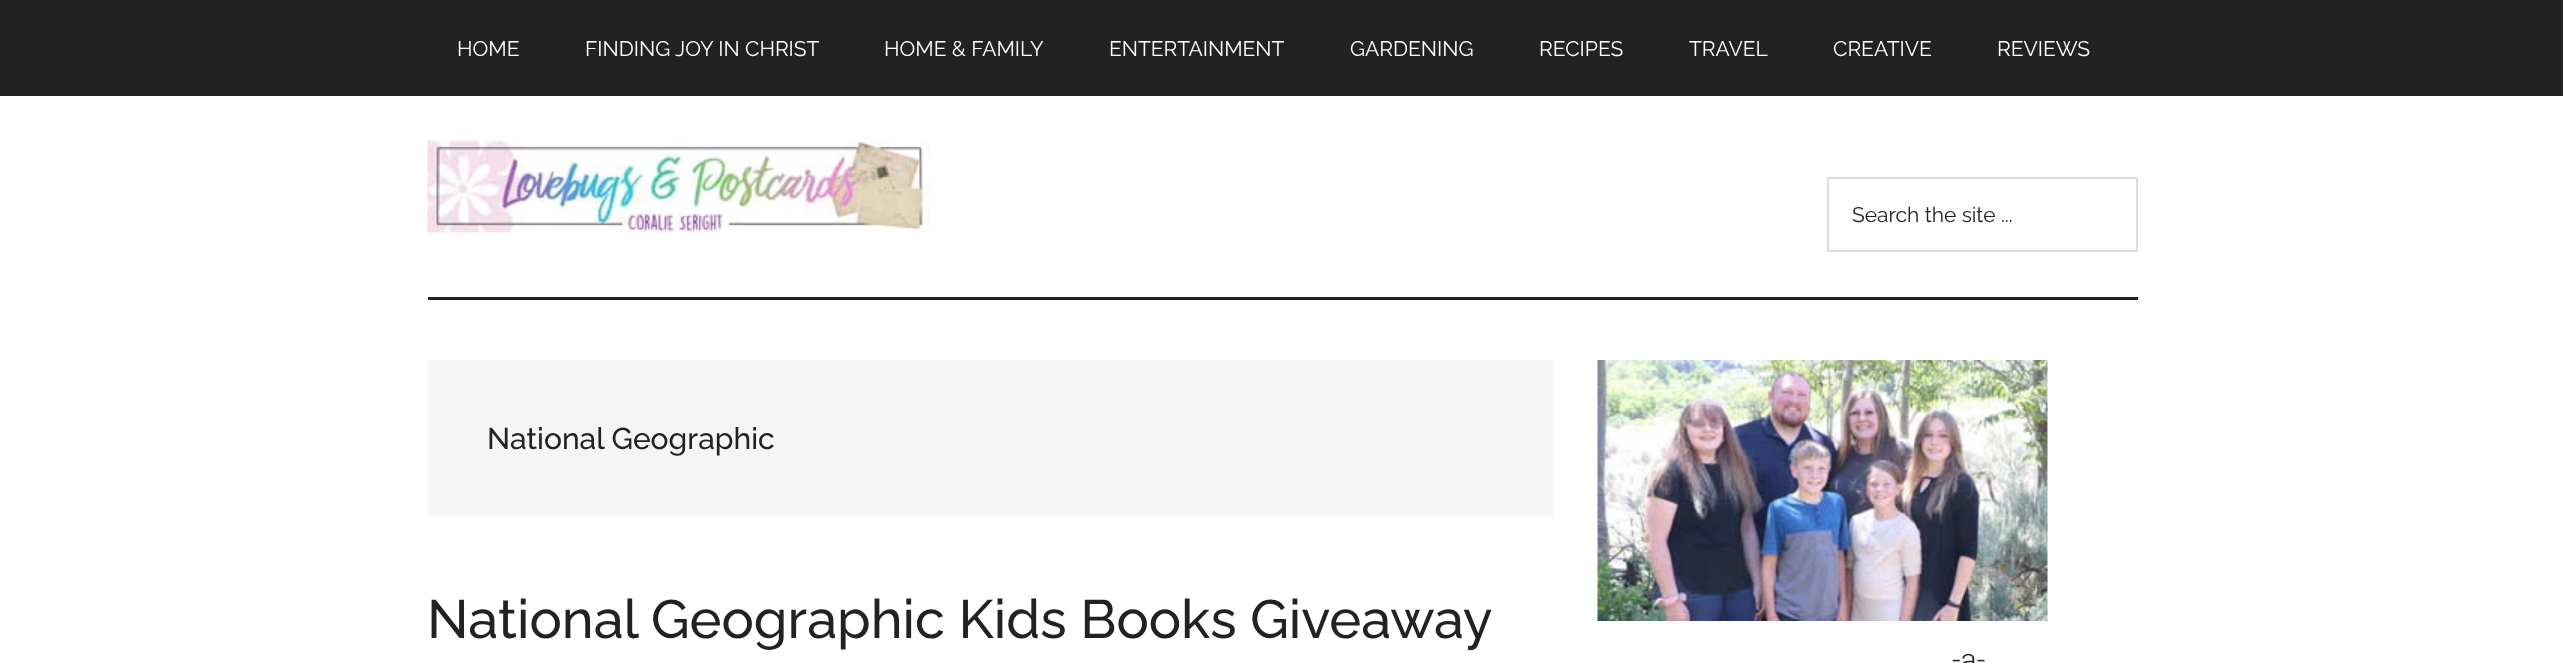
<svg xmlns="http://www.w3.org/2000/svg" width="2563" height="663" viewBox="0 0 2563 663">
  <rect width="100%" height="100%" fill="rgb(255,255,255)"/>
  <rect x="0" y="0" width="2563" height="96" fill="rgb(34,34,34)"/>
  <g font-family="Raleway" font-size="21" fill="rgb(255,255,255)">
    <text x="457" y="56">HOME</text>
    <text x="585" y="56">FINDING JOY IN CHRIST</text>
    <text x="884" y="56">HOME &amp; FAMILY</text>
    <text x="1109" y="56">ENTERTAINMENT</text>
    <text x="1350" y="56">GARDENING</text>
    <text x="1539" y="56">RECIPES</text>
    <text x="1689" y="56">TRAVEL</text>
    <text x="1833" y="56">CREATIVE</text>
    <text x="1997" y="56">REVIEWS</text>
  </g>
  <rect x="428" y="297" width="1710" height="3" fill="rgb(34,34,34)"/>
  <image x="427" y="141" width="503" height="92" href="pic1.png"/>
  <rect x="1828" y="178" width="309" height="73" fill="none" stroke="rgb(221,221,221)" stroke-width="2"/>
  <text x="1852" y="222" font-family="Raleway" font-size="21" fill="rgb(34,34,34)">Search the site ...</text>
  <rect x="428" y="360" width="1125" height="156" fill="rgb(245,245,245)"/>
  <text x="487" y="449" font-family="Raleway" font-size="30" font-weight="500" fill="rgb(34,34,34)">National Geographic</text>
  <text x="427" y="638" font-family="Raleway" font-size="54" font-weight="500" fill="rgb(34,34,34)">National Geographic Kids Books Giveaway</text>
  <image x="1597" y="360" width="451" height="261" href="pic2.png"/>
  <text x="1952" y="670" font-family="Roboto" font-size="30" font-weight="300" fill="rgb(34,34,34)">-a-</text>
</svg>
